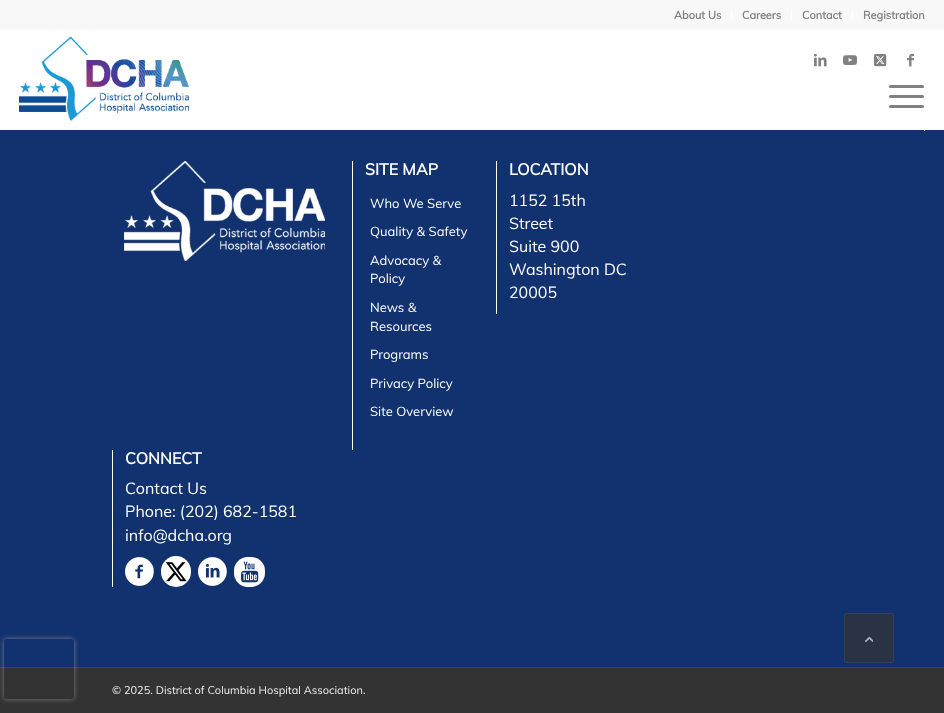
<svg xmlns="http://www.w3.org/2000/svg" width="944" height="713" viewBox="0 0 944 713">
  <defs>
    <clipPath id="clip1"><path d="M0 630H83V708H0ZM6 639H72C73 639 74 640 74 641V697C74 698 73 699 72 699H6C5 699 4 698 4 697V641C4 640 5 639 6 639Z" clip-rule="evenodd"/></clipPath>
  </defs>
  <rect width="100%" height="100%" fill="rgb(18,50,111)"/>
  <rect x="0" y="0" width="944" height="30" fill="rgb(248,248,248)"/>
  <rect x="731" y="10" width="1" height="10" fill="rgb(255,255,255)"/>
  <text x="674" y="19" font-family="Muli" font-size="11" font-weight="bold" fill="rgb(128,128,128)">About Us</text>
  <rect x="791" y="10" width="1" height="10" fill="rgb(255,255,255)"/>
  <text x="742" y="19" font-family="Muli" font-size="11" font-weight="bold" fill="rgb(128,128,128)">Careers</text>
  <rect x="852" y="10" width="1" height="10" fill="rgb(255,255,255)"/>
  <g font-family="Muli" font-size="11" font-weight="bold" fill="rgb(128,128,128)">
    <text x="802" y="19">Contact</text>
    <text x="863" y="19">Registration</text>
  </g>
  <rect x="0" y="30" width="944" height="100" fill="rgb(255,255,255)"/>
  <image x="19" y="36" width="170" height="85" href="pic1.png"/>
  <image x="814" y="53" width="13" height="14" href="pic2.png"/>
  <image x="843" y="55" width="14" height="10" href="pic3.png"/>
  <image x="874" y="54" width="13" height="13" href="pic4.png"/>
  <image x="907" y="53" width="7" height="14" href="pic5.png"/>
  <rect x="924" y="130" width="1" height="1" fill="rgb(255,255,255)"/>
  <rect x="889" y="95" width="35" height="3" rx="1.5" fill="rgb(128,128,128)"/>
  <rect x="889" y="85" width="35" height="3" rx="1.5" fill="rgb(128,128,128)"/>
  <rect x="889" y="105" width="35" height="3" rx="1.5" fill="rgb(128,128,128)"/>
  <image x="124" y="161" width="201" height="100" href="pic6.png"/>
  <rect x="352" y="161" width="1" height="289" fill="rgb(255,255,255)"/>
  <text x="365" y="175" font-family="Muli" font-size="16" font-weight="bold" fill="rgb(255,255,255)">SITE MAP</text>
  <g font-family="Muli" font-size="13" fill="rgb(255,255,255)">
    <text x="370" y="208">Who We Serve</text>
    <text x="370" y="236">Quality &amp; Safety</text>
    <text>
      <tspan x="370" y="265">Advocacy &amp;</tspan>
      <tspan x="370" y="283">Policy</tspan>
    </text>
    <text>
      <tspan x="370" y="312">News &amp;</tspan>
      <tspan x="370" y="331">Resources</tspan>
    </text>
    <text x="370" y="359">Programs</text>
    <text x="370" y="388">Privacy Policy</text>
    <text x="370" y="416">Site Overview</text>
  </g>
  <rect x="496" y="161" width="1" height="153" fill="rgb(255,255,255)"/>
  <text x="509" y="175" font-family="Muli" font-size="16" font-weight="bold" fill="rgb(255,255,255)">LOCATION</text>
  <g font-family="Muli" font-size="16" fill="rgb(255,255,255)">
    <text>
      <tspan x="509" y="206">1152 15th</tspan>
      <tspan x="509" y="229">Street</tspan>
      <tspan x="509" y="252">Suite 900</tspan>
      <tspan x="509" y="275">Washington DC</tspan>
      <tspan x="509" y="298">20005</tspan>
    </text>
  </g>
  <rect x="112" y="450" width="1" height="137" fill="rgb(255,255,255)"/>
  <text x="125" y="464" font-family="Muli" font-size="16" font-weight="bold" fill="rgb(255,255,255)">CONNECT</text>
  <g font-family="Muli" font-size="16" fill="rgb(255,255,255)">
    <text>
      <tspan x="125" y="494">Contact Us</tspan>
      <tspan x="125" y="517">Phone: (202) 682-1581</tspan>
      <tspan x="125" y="541">info@dcha.org</tspan>
    </text>
  </g>
  <image x="125" y="557" width="29" height="29" href="pic7.png"/>
  <rect x="161" y="556" width="30" height="31" rx="15" fill="rgb(255,255,255)"/>
  <image x="165" y="562" width="22" height="20" href="pic8.png"/>
  <image x="198" y="557" width="29" height="29" href="pic9.png"/>
  <rect x="234" y="557" width="31" height="30" rx="14" fill="rgb(255,255,255)"/>
  <image x="241" y="561" width="18" height="22" href="pic10.png"/>
  <rect x="0" y="668" width="944" height="45" fill="rgb(51,51,51)"/>
  <rect x="0" y="667" width="944" height="1" fill="rgb(68,68,68)"/>
  <text x="112" y="694" font-family="Muli" font-size="11" fill="rgb(238,238,238)">© 2025. District of Columbia Hospital Association.</text>
  <g clip-path="url(#clip1)">
    <rect x="4" y="639" width="70" height="60" rx="2" fill="rgb(128,128,128)" filter="blur(2.5px)"/>
  </g>
  <rect x="844.5" y="613.5" width="49" height="49" rx="1.5" fill="rgb(41,51,69)" stroke="rgb(53,63,81)"/>
  <image x="865" y="637" width="8" height="5" href="pic11.png"/>
</svg>
